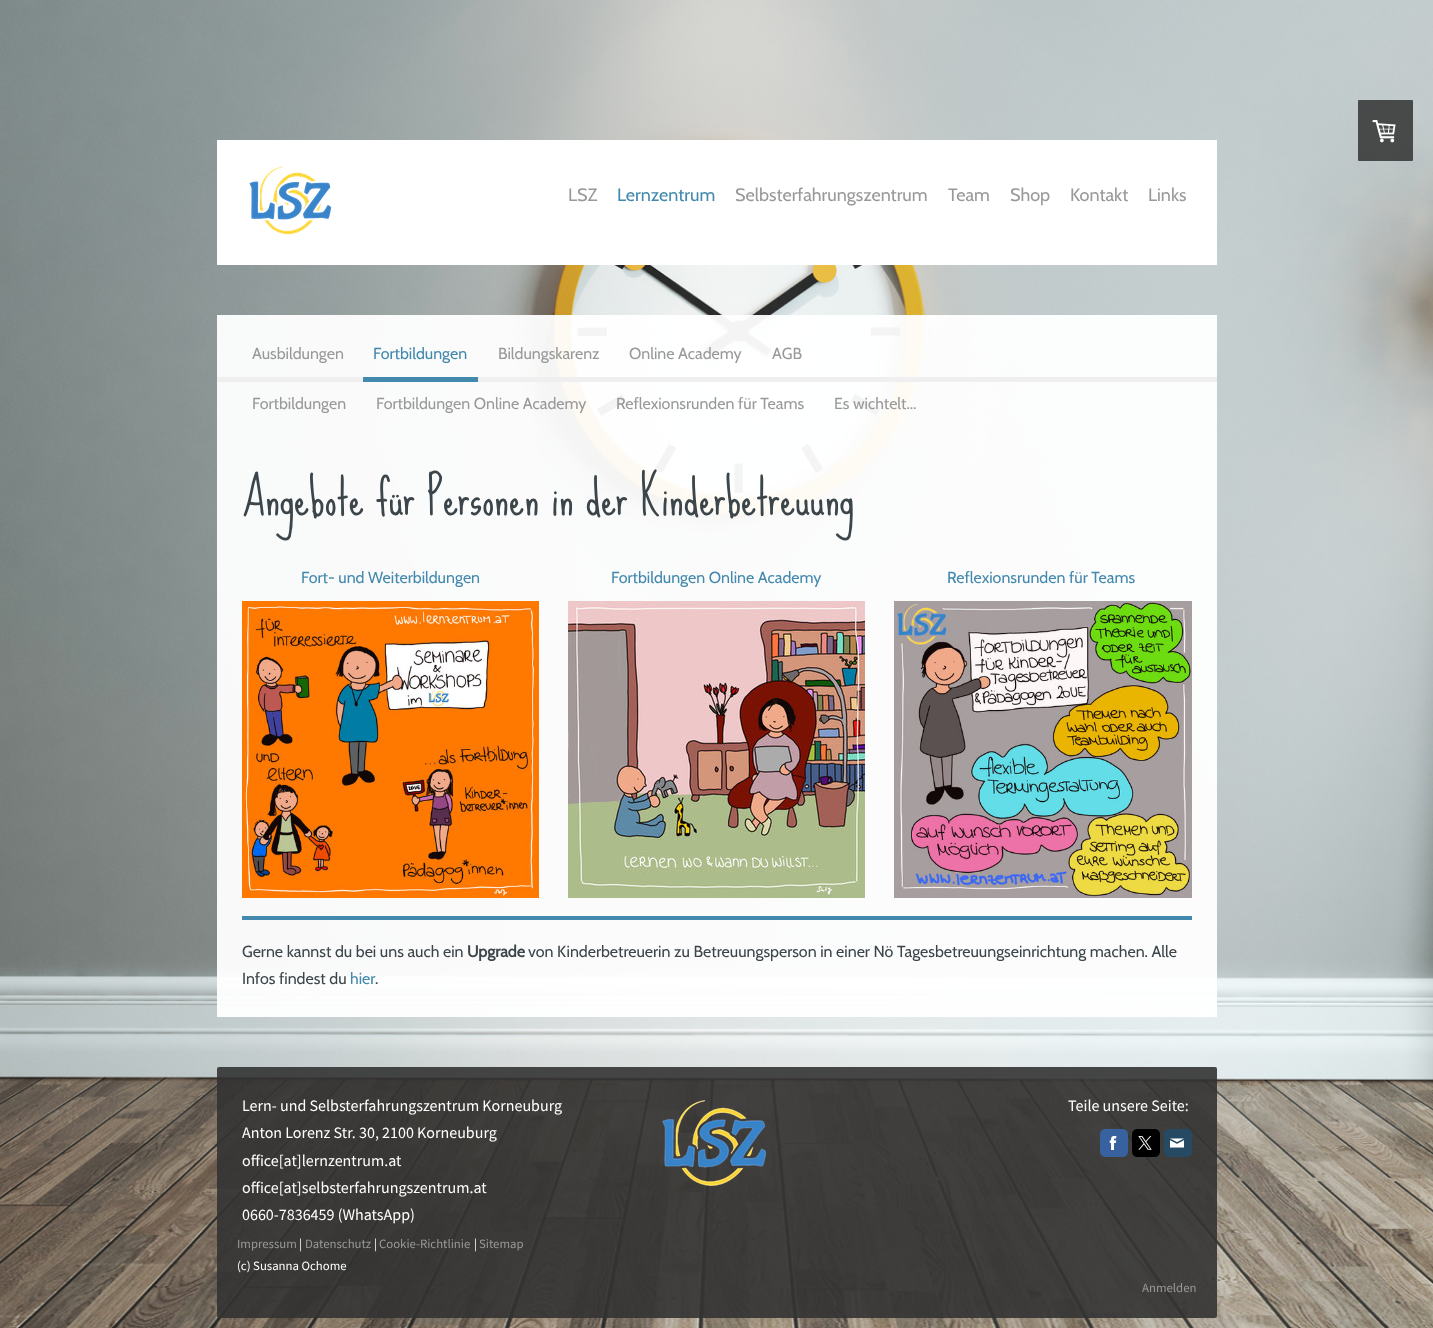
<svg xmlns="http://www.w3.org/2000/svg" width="1433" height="1328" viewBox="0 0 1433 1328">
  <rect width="100%" height="100%" fill="rgb(255,255,255)"/>
  <image x="0" y="0" width="1433" height="1328" href="pic1.png"/>
  <rect x="1358" y="100" width="55" height="61" rx="1" fill="rgba(51,51,51,0.85)"/>
  <image x="1372" y="120" width="24" height="23" href="pic2.png"/>
  <rect x="217" y="140" width="1000" height="125" fill="rgb(255,255,255)"/>
  <image x="249" y="166" width="83" height="69" href="pic3.png"/>
  <text x="568" y="201" font-family="Cabin" font-size="18" fill="rgb(153,153,153)">LSZ</text>
  <text x="617" y="201" font-family="Cabin" font-size="18" fill="rgb(67,137,173)">Lernzentrum</text>
  <g font-family="Cabin" font-size="18" fill="rgb(153,153,153)">
    <text x="735" y="201">Selbsterfahrungszentrum</text>
    <text x="948" y="201">Team</text>
    <text x="1010" y="201">Shop</text>
    <text x="1070" y="201">Kontakt</text>
    <text x="1148" y="201">Links</text>
  </g>
  <rect x="217" y="315" width="1000" height="133" fill="rgba(255,255,255,0.95)"/>
  <rect x="217" y="377" width="1000" height="5" fill="rgb(239,239,239)"/>
  <text x="252" y="359" font-family="Cabin" font-size="16" fill="rgb(153,153,153)">Ausbildungen</text>
  <rect x="363" y="377" width="115" height="5" fill="rgb(67,137,173)"/>
  <text x="373" y="359" font-family="Cabin" font-size="16" fill="rgb(67,137,173)">Fortbildungen</text>
  <g font-family="Cabin" font-size="16" fill="rgb(153,153,153)">
    <text x="498" y="359">Bildungskarenz</text>
    <text x="629" y="359">Online Academy</text>
    <text x="772" y="359">AGB</text>
    <text x="252" y="409">Fortbildungen</text>
    <text x="376" y="409">Fortbildungen Online Academy</text>
    <text x="616" y="409">Reflexionsrunden für Teams</text>
    <text x="834" y="409">Es wichtelt...</text>
  </g>
  <rect x="217" y="448" width="1000" height="569" fill="rgba(255,255,255,0.95)"/>
  <text x="242" y="515" font-family="Sue Ellen Francisco" font-size="48" fill="rgb(59,69,74)">Angebote für Personen in der Kinderbetreuung</text>
  <text x="301" y="583" font-family="Cabin" font-size="16" fill="rgb(67,137,173)">Fort- und Weiterbildungen</text>
  <image x="242" y="601" width="297" height="297" href="pic4.png"/>
  <text x="611" y="583" font-family="Cabin" font-size="16" fill="rgb(67,137,173)">Fortbildungen Online Academy</text>
  <image x="568" y="601" width="297" height="297" href="pic5.png"/>
  <text x="947" y="583" font-family="Cabin" font-size="16" fill="rgb(67,137,173)">Reflexionsrunden für Teams</text>
  <image x="894" y="601" width="298" height="297" href="pic6.png"/>
  <rect x="242" y="916" width="950" height="1" fill="rgb(67,137,173)"/>
  <rect x="1191" y="916" width="1" height="4" fill="rgb(67,137,173)"/>
  <rect x="242" y="917" width="950" height="3" fill="rgb(67,137,173)"/>
  <text x="242" y="957" font-family="Cabin" font-size="16" fill="rgb(59,69,74)">Gerne kannst du bei uns auch ein</text>
  <text x="467" y="957" font-family="Cabin" font-size="16" font-weight="bold" fill="rgb(59,69,74)">Upgrade</text>
  <g font-family="Cabin" font-size="16" fill="rgb(59,69,74)">
    <text x="528" y="957">von Kinderbetreuerin zu Betreuungsperson in einer Nö Tagesbetreuungseinrichtung machen. Alle</text>
    <text x="242" y="984">Infos findest du</text>
  </g>
  <text x="350" y="984" font-family="Cabin" font-size="16" fill="rgb(67,137,173)">hier</text>
  <text x="375" y="984" font-family="Cabin" font-size="16" fill="rgb(59,69,74)">.</text>
  <rect x="217" y="1067" width="1000" height="251" rx="2" fill="rgba(51,51,51,0.9)"/>
  <g font-family="Source Sans Pro" font-size="16" fill="rgb(255,255,255)">
    <text>
      <tspan x="242" y="1111">Lern- und Selbsterfahrungszentrum Korneuburg</tspan>
      <tspan x="242" y="1138">Anton Lorenz Str. 30, 2100 Korneuburg</tspan>
      <tspan x="242" y="1166">office[at]lernzentrum.at</tspan>
      <tspan x="242" y="1193">office[at]selbsterfahrungszentrum.at</tspan>
      <tspan x="242" y="1220">0660-7836459 (WhatsApp)</tspan>
    </text>
  </g>
  <image x="662" y="1100" width="105" height="86" href="pic7.png"/>
  <text x="1068" y="1111" font-family="Source Sans Pro" font-size="16" fill="rgb(255,255,255)">Teile unsere Seite:</text>
  <image x="1100" y="1129" width="28" height="28" href="pic8.png"/>
  <image x="1109" y="1136" width="8" height="14" href="pic9.png"/>
  <image x="1132" y="1129" width="28" height="28" href="pic10.png"/>
  <image x="1138" y="1136" width="14" height="14" href="pic11.png"/>
  <image x="1164" y="1129" width="28" height="28" href="pic12.png"/>
  <image x="1170" y="1138" width="14" height="10" href="pic13.png"/>
  <text x="237" y="1248" font-family="Source Sans Pro" font-size="12.75" fill="rgb(153,153,153)">Impressum</text>
  <text x="299" y="1248" font-family="Source Sans Pro" font-size="12.75" fill="rgb(255,255,255)">|</text>
  <text x="305" y="1248" font-family="Source Sans Pro" font-size="12.75" fill="rgb(153,153,153)">Datenschutz</text>
  <text x="374" y="1248" font-family="Source Sans Pro" font-size="12.75" fill="rgb(255,255,255)">|</text>
  <text x="379" y="1248" font-family="Source Sans Pro" font-size="12.75" fill="rgb(153,153,153)">Cookie-Richtlinie</text>
  <text x="474" y="1248" font-family="Source Sans Pro" font-size="12.75" fill="rgb(255,255,255)">|</text>
  <text x="479" y="1248" font-family="Source Sans Pro" font-size="12.75" fill="rgb(153,153,153)">Sitemap</text>
  <text x="237" y="1270" font-family="Source Sans Pro" font-size="12.75" fill="rgb(255,255,255)">(c) Susanna Ochome</text>
  <text x="1142" y="1292" font-family="Source Sans Pro" font-size="12.75" fill="rgb(153,153,153)">Anmelden</text>
</svg>
